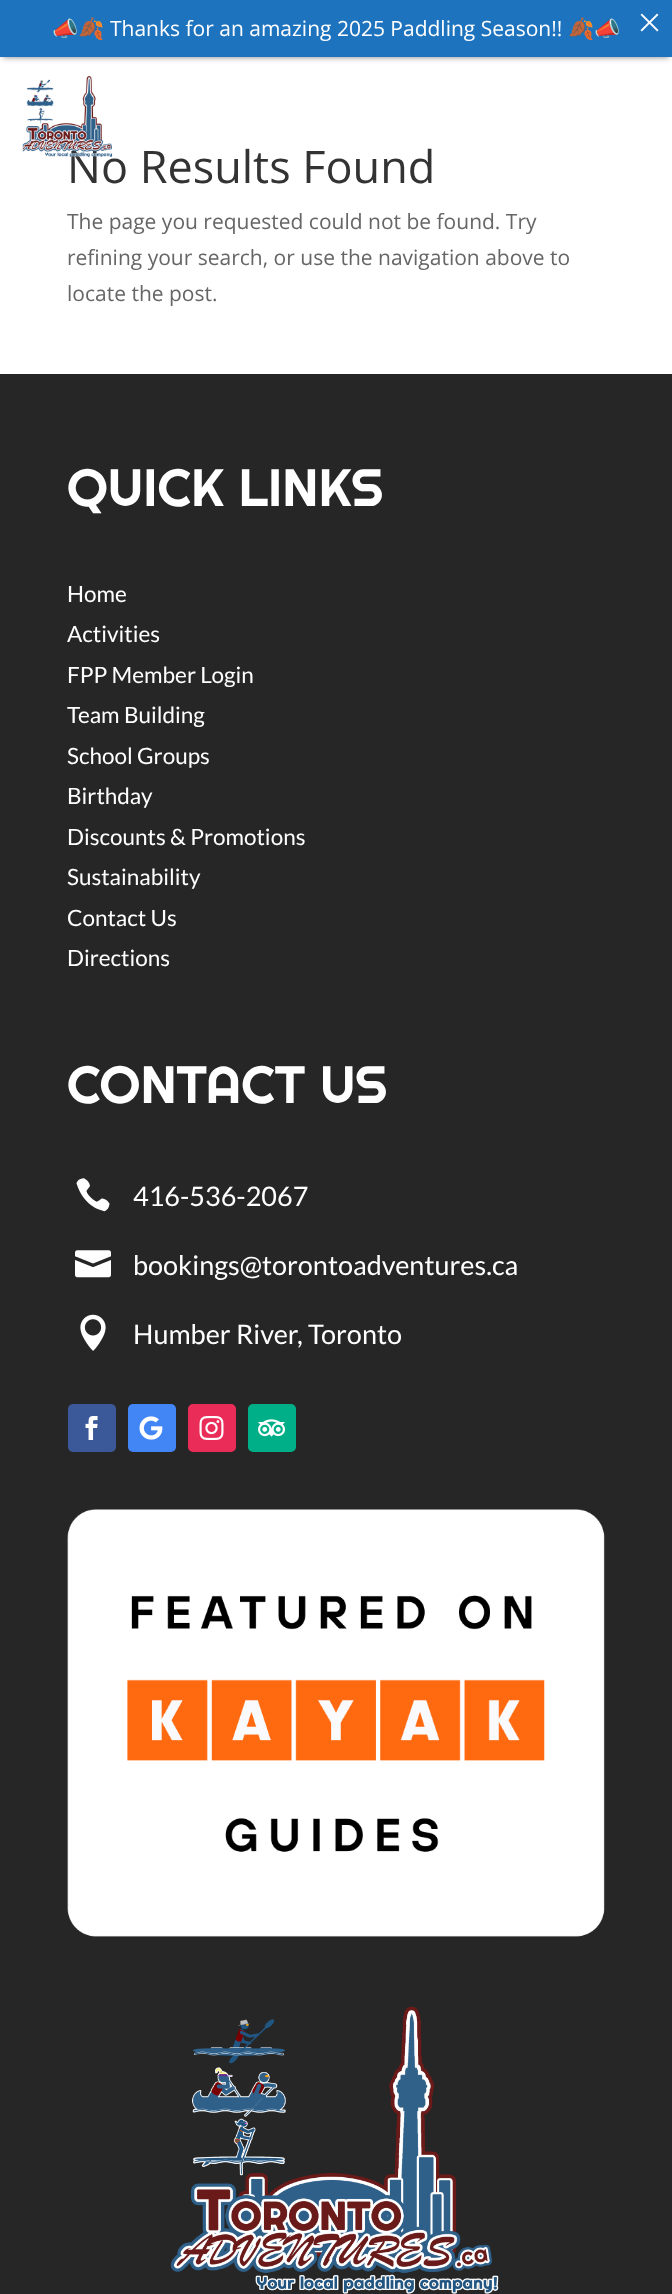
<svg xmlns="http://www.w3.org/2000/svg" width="672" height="2294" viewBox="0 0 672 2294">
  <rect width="100%" height="100%" fill="rgb(255,255,255)"/>
  <rect x="3" y="6" width="666" height="51" fill="rgba(0,0,0,0.5)" filter="blur(3px)"/>
  <rect x="0" y="0" width="672" height="57" fill="rgb(30,115,190)"/>
  <text x="52" y="36" font-family="Noto Color Emoji" font-size="21" fill="rgb(255,255,255)">📣🍂</text>
  <text x="110" y="36" font-family="Open Sans" font-size="21" fill="rgb(255,255,255)">Thanks for an amazing 2025 Paddling Season!!</text>
  <text x="568" y="36" font-family="Noto Color Emoji" font-size="21" fill="rgb(255,255,255)">🍂📣</text>
  <image x="640" y="13" width="19" height="19" href="pic1.png"/>
  <text x="67" y="183" font-family="Open Sans" font-size="45" fill="rgb(51,51,51)">No Results Found</text>
  <image x="22" y="76" width="91" height="81" href="pic2.png"/>
  <g font-family="Open Sans" font-size="21" fill="rgb(102,102,102)">
    <text>
      <tspan x="67" y="229">The page you requested could not be found. Try</tspan>
      <tspan x="67" y="265">refining your search, or use the navigation above to</tspan>
      <tspan x="67" y="301">locate the post.</tspan>
    </text>
  </g>
  <rect x="0" y="374" width="672" height="1920" fill="rgb(38,38,38)"/>
  <text x="67" y="506" font-family="Righteous" font-size="52.5" fill="rgb(255,255,255)">QUICK LINKS</text>
  <g font-family="Lato" font-size="22.5" fill="rgb(255,255,255)">
    <text>
      <tspan x="67" y="602">Home</tspan>
      <tspan x="67" y="642">Activities</tspan>
      <tspan x="67" y="683">FPP Member Login</tspan>
      <tspan x="67" y="723">Team Building</tspan>
      <tspan x="67" y="764">School Groups</tspan>
      <tspan x="67" y="804">Birthday</tspan>
      <tspan x="67" y="845">Discounts &amp; Promotions</tspan>
      <tspan x="67" y="885">Sustainability</tspan>
      <tspan x="67" y="926">Contact Us</tspan>
      <tspan x="67" y="966">Directions</tspan>
    </text>
  </g>
  <text x="67" y="1103" font-family="Righteous" font-size="52.5" fill="rgb(255,255,255)">CONTACT US</text>
  <image x="76" y="1178" width="34" height="34" href="pic3.png"/>
  <text x="133" y="1206" font-family="Lato" font-size="27" fill="rgb(255,255,255)">416-536-2067</text>
  <image x="75" y="1250" width="36" height="28" href="pic4.png"/>
  <text x="133" y="1275" font-family="Lato" font-size="27" fill="rgb(255,255,255)">bookings@torontoadventures.ca</text>
  <image x="80" y="1314" width="26" height="37" href="pic5.png"/>
  <text x="133" y="1344" font-family="Lato" font-size="27" fill="rgb(255,255,255)">Humber River, Toronto</text>
  <rect x="68" y="1404" width="48" height="48" rx="5" fill="rgb(59,89,152)"/>
  <image x="85" y="1416" width="13" height="24" href="pic6.png"/>
  <rect x="128" y="1404" width="48" height="48" rx="5" fill="rgb(66,133,244)"/>
  <image x="139" y="1416" width="24" height="24" href="pic7.png"/>
  <rect x="188" y="1404" width="48" height="48" rx="5" fill="rgb(234,44,89)"/>
  <image x="199" y="1416" width="25" height="24" href="pic8.png"/>
  <rect x="248" y="1404" width="48" height="48" rx="5" fill="rgb(0,175,135)"/>
  <image x="258" y="1419" width="27" height="18" href="pic9.png"/>
  <image x="67" y="1509" width="538" height="428" href="pic10.png"/>
  <image x="170" y="2006" width="329" height="288" href="pic11.png"/>
</svg>
